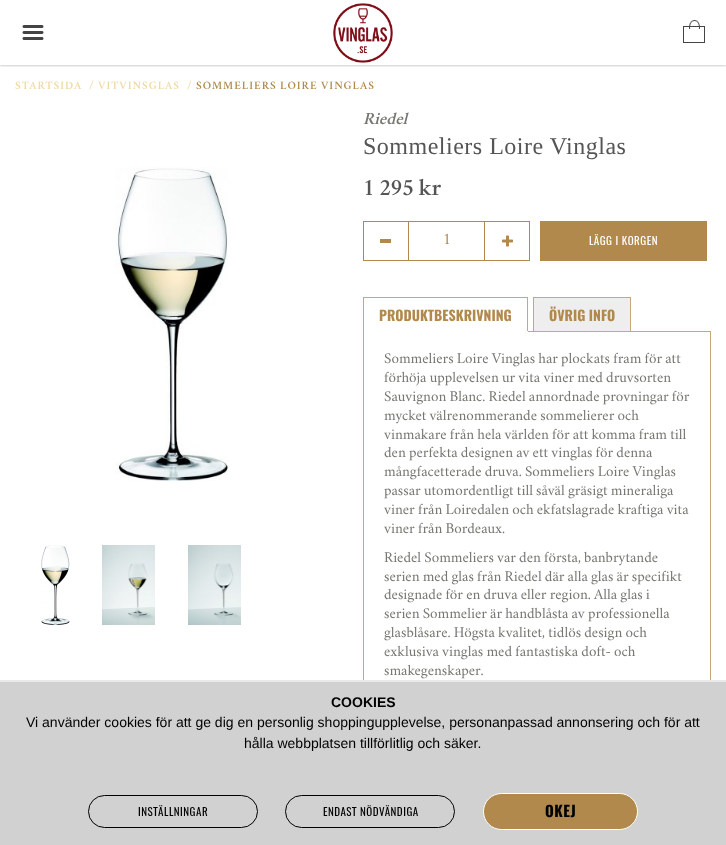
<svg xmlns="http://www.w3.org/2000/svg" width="726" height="845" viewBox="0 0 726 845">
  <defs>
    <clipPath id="clip1"><rect x="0" y="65" width="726" height="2"/></clipPath>
  </defs>
  <rect width="100%" height="100%" fill="rgb(255,255,255)"/>
  <g clip-path="url(#clip1)">
    <rect x="0" y="1" width="726" height="65" fill="rgba(0,0,0,0.2)" filter="blur(1px)"/>
  </g>
  <image x="22" y="25" width="22" height="15" href="pic1.png"/>
  <image x="333" y="3" width="60" height="60" href="pic2.png"/>
  <image x="683" y="20" width="22" height="23" href="pic3.png"/>
  <g font-family="Crimson Text" font-size="10" font-weight="600" letter-spacing="1" fill="rgb(239,217,162)">
    <text x="15" y="89">STARTSIDA</text>
    <text x="89" y="89">/ VITVINSGLAS</text>
    <text x="187" y="89">/</text>
  </g>
  <text x="196" y="89" font-family="Crimson Text" font-size="10" font-weight="600" letter-spacing="1" fill="rgb(177,137,76)">SOMMELIERS LOIRE VINGLAS</text>
  <image x="115" y="167" width="113" height="314" href="pic4.png"/>
  <image x="41" y="545" width="29" height="80" href="pic5.png"/>
  <image x="102" y="545" width="53" height="80" href="pic6.png"/>
  <image x="188" y="545" width="53" height="80" href="pic7.png"/>
  <text x="363" y="124" font-family="Crimson Text" font-size="15" font-weight="600" font-style="italic" fill="rgb(119,119,114)">Riedel</text>
  <text x="363" y="154" font-family="Liberation Serif" font-size="24" letter-spacing="0.5" fill="rgb(85,85,85)">Sommeliers Loire Vinglas</text>
  <text x="363" y="195" font-family="Crimson Text" font-size="21" font-weight="600" fill="rgb(85,85,85)">1 295 kr</text>
  <rect x="363" y="221" width="45" height="1" fill="rgb(177,137,76)"/>
  <rect x="363" y="260" width="45" height="1" fill="rgb(177,137,76)"/>
  <rect x="363" y="221" width="1" height="40" fill="rgb(177,137,76)"/>
  <rect x="380" y="239" width="11" height="4" fill="rgb(177,137,76)"/>
  <rect x="408.5" y="221.5" width="76" height="39" fill="none" stroke="rgb(177,137,76)"/>
  <text x="443" y="244" font-family="Crimson Text" font-size="14" fill="rgb(177,137,76)">1</text>
  <rect x="485" y="221" width="45" height="1" fill="rgb(177,137,76)"/>
  <rect x="529" y="221" width="1" height="40" fill="rgb(177,137,76)"/>
  <rect x="485" y="260" width="45" height="1" fill="rgb(177,137,76)"/>
  <image x="502" y="235" width="11" height="12" href="pic8.png"/>
  <rect x="540" y="221" width="167" height="40" fill="rgb(177,137,76)"/>
  <text x="589" y="245" font-family="Oswald" font-size="11" letter-spacing="0.5" fill="rgb(255,255,255)">LÄGG I KORGEN</text>
  <rect x="363" y="297" width="165" height="1" fill="rgb(198,168,124)"/>
  <rect x="363.5" y="331.5" width="347" height="382" fill="none" stroke="rgb(198,168,124)"/>
  <rect x="527" y="297" width="1" height="35" fill="rgb(198,168,124)"/>
  <rect x="363" y="331" width="165" height="1" fill="rgb(255,255,255)"/>
  <rect x="363" y="297" width="1" height="35" fill="rgb(198,168,124)"/>
  <text x="379" y="321" font-family="Oswald" font-size="14" font-weight="bold" fill="rgb(177,137,76)">PRODUKTBESKRIVNING</text>
  <rect x="534" y="298" width="96" height="33" fill="rgb(238,238,238)"/>
  <rect x="533" y="297" width="98" height="1" fill="rgb(198,168,124)"/>
  <rect x="630" y="297" width="1" height="34" fill="rgb(198,168,124)"/>
  <rect x="533" y="297" width="1" height="34" fill="rgb(198,168,124)"/>
  <text x="549" y="321" font-family="Oswald" font-size="14" font-weight="bold" fill="rgb(177,137,76)">ÖVRIG INFO</text>
  <g font-family="Crimson Text" font-size="13" fill="rgb(119,119,114)">
    <text>
      <tspan x="384" y="363">Sommeliers Loire Vinglas har plockats fram för att</tspan>
      <tspan x="384" y="382">förhöja upplevelsen ur vita viner med druvsorten</tspan>
      <tspan x="384" y="401">Sauvignon Blanc. Riedel annordnade provningar för</tspan>
      <tspan x="384" y="420">mycket välrenommerande sommelierer och</tspan>
      <tspan x="384" y="439">vinmakare från hela världen för att komma fram till</tspan>
      <tspan x="384" y="457">den perfekta designen av ett vinglas för denna</tspan>
      <tspan x="384" y="476">mångfacetterade druva. Sommeliers Loire Vinglas</tspan>
      <tspan x="384" y="495">passar utomordentligt till såväl gräsigt mineraliga</tspan>
      <tspan x="384" y="514">viner från Loiredalen och ekfatslagrade kraftiga vita</tspan>
      <tspan x="384" y="533">viner från Bordeaux.</tspan>
    </text>
    <text>
      <tspan x="384" y="562">Riedel Sommeliers var den första, banbrytande</tspan>
      <tspan x="384" y="581">serien med glas från Riedel där alla glas är specifikt</tspan>
      <tspan x="384" y="599">designade för en druva eller region. Alla glas i</tspan>
      <tspan x="384" y="618">serien Sommelier är handblåsta av professionella</tspan>
      <tspan x="384" y="637">glasblåsare. Högsta kvalitet, tidlös design och</tspan>
      <tspan x="384" y="656">exklusiva vinglas med fantastiska doft- och</tspan>
      <tspan x="384" y="675">smakegenskaper.</tspan>
    </text>
  </g>
  <rect x="0" y="682" width="726" height="163" fill="rgb(209,209,209)"/>
  <rect x="0" y="680" width="726" height="2" fill="rgb(233,233,233)"/>
  <text x="331" y="707" font-family="Liberation Sans" font-size="14" font-weight="bold" fill="rgb(0,0,0)">COOKIES</text>
  <g font-family="Liberation Sans" font-size="14" fill="rgb(0,0,0)">
    <text x="26" y="727">Vi använder cookies för att ge dig en personlig shoppingupplevelse, personanpassad annonsering och för att</text>
    <text x="244" y="748">hålla webbplatsen tillförlitlig och säker.</text>
  </g>
  <rect x="88.5" y="795.5" width="169" height="32" rx="16" fill="none" stroke="rgb(0,0,0)"/>
  <text x="138" y="816" font-family="Oswald" font-size="11" letter-spacing="0.5" fill="rgb(0,0,0)">INSTÄLLNINGAR</text>
  <rect x="285.5" y="795.5" width="169" height="32" rx="16" fill="none" stroke="rgb(0,0,0)"/>
  <text x="323" y="816" font-family="Oswald" font-size="11" letter-spacing="0.5" fill="rgb(0,0,0)">ENDAST NÖDVÄNDIGA</text>
  <rect x="483.5" y="793.5" width="154" height="36" rx="18" fill="rgb(177,137,76)" stroke="rgb(255,255,255)"/>
  <text x="545" y="817" font-family="Oswald" font-size="15" font-weight="bold" letter-spacing="0.5" fill="rgb(0,0,0)">OKEJ</text>
</svg>
